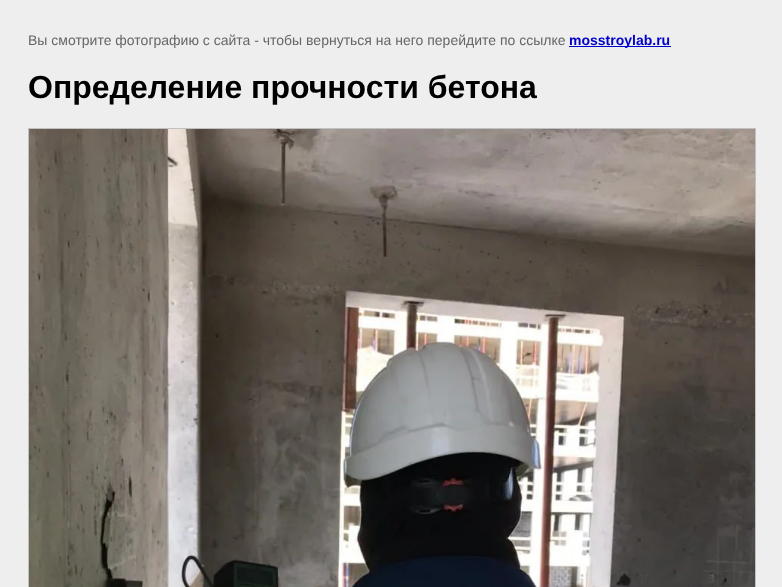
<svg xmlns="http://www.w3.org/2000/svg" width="782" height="587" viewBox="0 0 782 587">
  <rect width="100%" height="100%" fill="rgb(238,238,238)"/>
  <text x="28" y="45" font-family="Liberation Sans" font-size="14" fill="rgb(102,102,102)">Вы смотрите фотографию с сайта - чтобы вернуться на него перейдите по ссылке</text>
  <rect x="569" y="46" width="102" height="1" fill="rgb(0,0,204)"/>
  <text x="569" y="45" font-family="Liberation Sans" font-size="14" font-weight="bold" fill="rgb(0,0,204)">mosstroylab.ru</text>
  <text x="28" y="98" font-family="Liberation Sans" font-size="32" font-weight="bold" fill="rgb(0,0,0)">Определение прочности бетона</text>
  <rect x="28.5" y="128.5" width="727" height="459" fill="none" stroke="rgb(192,192,192)"/>
  <image x="29" y="129" width="726" height="458" href="pic1.png"/>
</svg>
